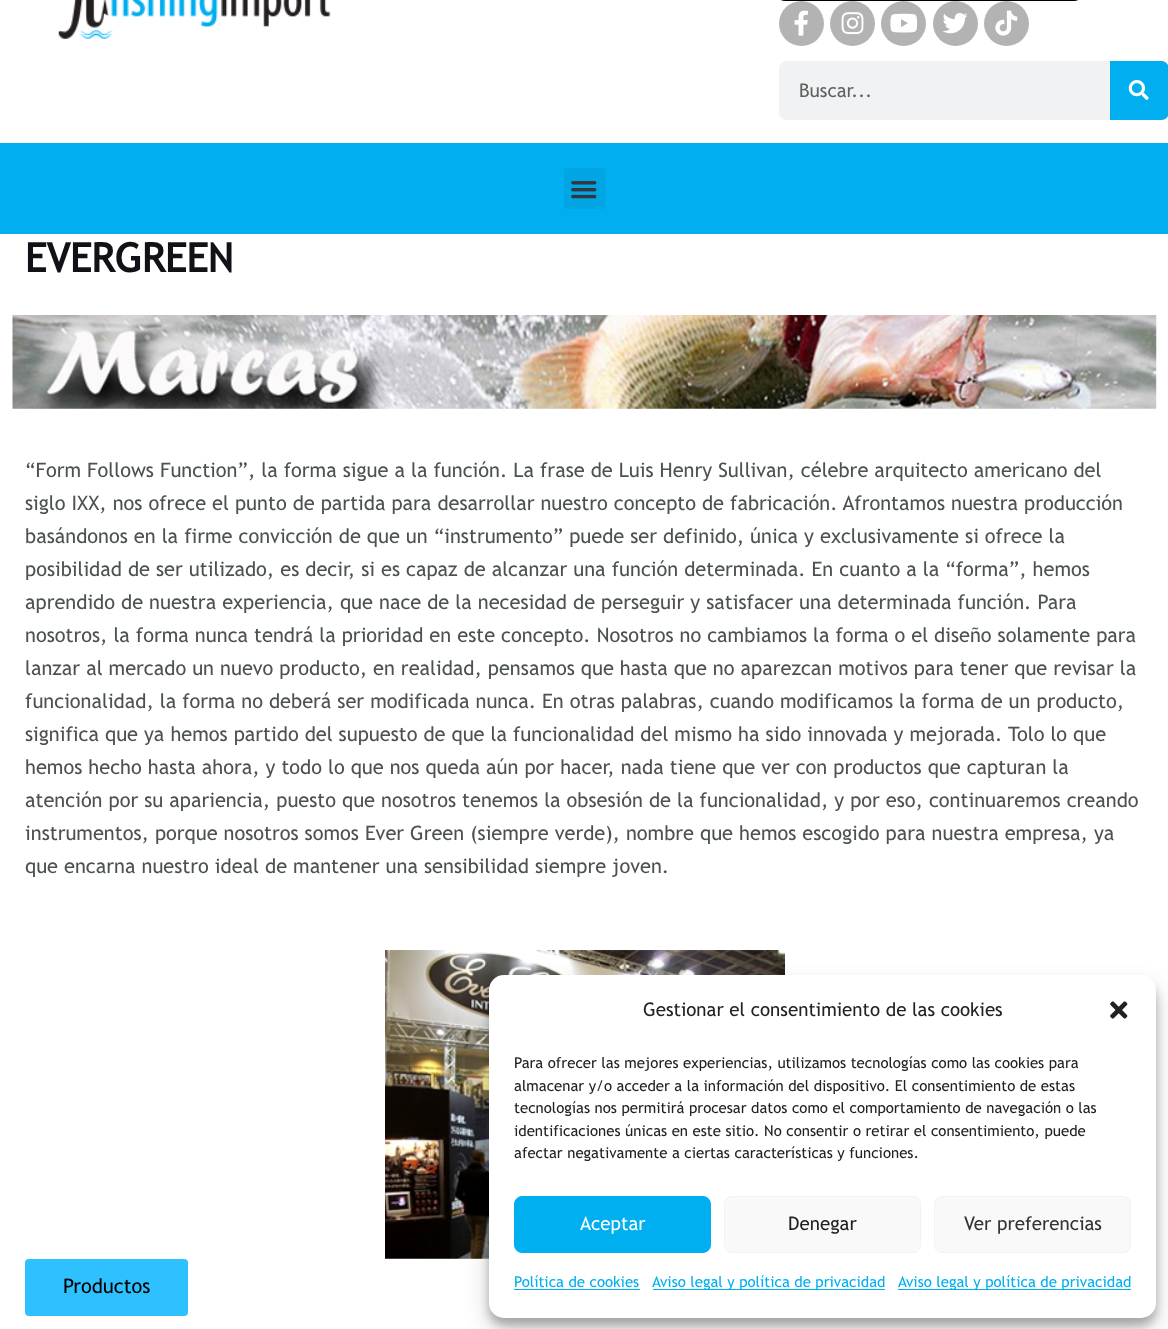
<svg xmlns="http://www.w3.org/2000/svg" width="1168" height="1329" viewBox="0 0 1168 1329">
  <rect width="100%" height="100%" fill="rgb(255,255,255)"/>
  <image x="58" y="0" width="273" height="39" href="pic1.png"/>
  <rect x="779" y="-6" width="301" height="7" rx="6" fill="rgb(0,0,0)"/>
  <circle cx="801.5" cy="23.5" r="22.5" fill="rgb(179,179,179)"/>
  <image x="794" y="10" width="14" height="26" href="pic2.png"/>
  <circle cx="852.5" cy="23.5" r="22.5" fill="rgb(179,179,179)"/>
  <image x="841" y="12" width="23" height="23" href="pic3.png"/>
  <circle cx="903.5" cy="23.5" r="22.5" fill="rgb(179,179,179)"/>
  <image x="890" y="13" width="28" height="20" href="pic4.png"/>
  <circle cx="955.5" cy="23.5" r="22.5" fill="rgb(179,179,179)"/>
  <image x="942" y="13" width="26" height="21" href="pic5.png"/>
  <circle cx="1006.5" cy="23.5" r="22.5" fill="rgb(179,179,179)"/>
  <image x="995" y="10" width="23" height="26" href="pic6.png"/>
  <rect x="779" y="61" width="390" height="59" rx="8" fill="rgb(241,242,243)"/>
  <text x="799" y="97" font-family="Trebuchet MS" font-size="18.75" fill="rgb(96,97,97)">Buscar...</text>
  <path d="M1110 61H1161C1165.5 61 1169 64.5 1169 69V112C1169 116.5 1165.5 120 1161 120H1110Z" fill="rgb(1,174,240)"/>
  <image x="1128" y="80" width="21" height="20" href="pic7.png"/>
  <rect x="0" y="143" width="1168" height="91" fill="rgb(1,174,240)"/>
  <rect x="564" y="168" width="41" height="41" rx="4" fill="rgb(1,165,228)"/>
  <image x="571" y="181" width="26" height="18" href="pic8.png"/>
  <text x="25" y="272" font-family="Trebuchet MS" font-size="40" font-weight="bold" fill="rgb(16,18,24)">EVERGREEN</text>
  <image x="12" y="315" width="1145" height="94" href="pic9.png"/>
  <g font-family="Trebuchet MS" font-size="20" fill="rgb(76,82,83)">
    <text>
      <tspan x="25" y="477">“Form Follows Function”, la forma sigue a la función. La frase de Luis Henry Sullivan, célebre arquitecto americano del</tspan>
      <tspan x="25" y="510">siglo IXX, nos ofrece el punto de partida para desarrollar nuestro concepto de fabricación. Afrontamos nuestra producción</tspan>
      <tspan x="25" y="543">basándonos en la firme convicción de que un “instrumento” puede ser definido, única y exclusivamente si ofrece la</tspan>
      <tspan x="25" y="576">posibilidad de ser utilizado, es decir, si es capaz de alcanzar una función determinada. En cuanto a la “forma”, hemos</tspan>
      <tspan x="25" y="609">aprendido de nuestra experiencia, que nace de la necesidad de perseguir y satisfacer una determinada función. Para</tspan>
      <tspan x="25" y="642">nosotros, la forma nunca tendrá la prioridad en este concepto. Nosotros no cambiamos la forma o el diseño solamente para</tspan>
      <tspan x="25" y="675">lanzar al mercado un nuevo producto, en realidad, pensamos que hasta que no aparezcan motivos para tener que revisar la</tspan>
      <tspan x="25" y="708">funcionalidad, la forma no deberá ser modificada nunca. En otras palabras, cuando modificamos la forma de un producto,</tspan>
      <tspan x="25" y="741">significa que ya hemos partido del supuesto de que la funcionalidad del mismo ha sido innovada y mejorada. Tolo lo que</tspan>
      <tspan x="25" y="774">hemos hecho hasta ahora, y todo lo que nos queda aún por hacer, nada tiene que ver con productos que capturan la</tspan>
      <tspan x="25" y="807">atención por su apariencia, puesto que nosotros tenemos la obsesión de la funcionalidad, y por eso, continuaremos creando</tspan>
      <tspan x="25" y="840">instrumentos, porque nosotros somos Ever Green (siempre verde), nombre que hemos escogido para nuestra empresa, ya</tspan>
      <tspan x="25" y="873">que encarna nuestro ideal de mantener una sensibilidad siempre joven.</tspan>
    </text>
  </g>
  <image x="385" y="950" width="400" height="309" href="pic10.png"/>
  <rect x="25" y="1259" width="163" height="57" rx="4" fill="rgb(47,193,255)"/>
  <text x="63" y="1293" font-family="Trebuchet MS" font-size="20" fill="rgb(0,0,0)">Productos</text>
  <rect x="489" y="983" width="667" height="342" rx="15" fill="rgba(0,0,0,0.23)" filter="blur(4px)"/>
  <rect x="489" y="988" width="667" height="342" rx="15" fill="rgba(0,0,0,0.19)" filter="blur(12.5px)"/>
  <rect x="489" y="975" width="667" height="343" rx="15" fill="rgb(255,255,255)"/>
  <text x="643" y="1016" font-family="Trebuchet MS" font-size="18.75" fill="rgb(34,34,34)">Gestionar el consentimiento de las cookies</text>
  <image x="1110" y="1001" width="18" height="18" href="pic11.png"/>
  <g font-family="Trebuchet MS" font-size="15" fill="rgb(34,34,34)">
    <text>
      <tspan x="514" y="1068">Para ofrecer las mejores experiencias, utilizamos tecnologías como las cookies para</tspan>
      <tspan x="514" y="1091">almacenar y/o acceder a la información del dispositivo. El consentimiento de estas</tspan>
      <tspan x="514" y="1113">tecnologías nos permitirá procesar datos como el comportamiento de navegación o las</tspan>
      <tspan x="514" y="1136">identificaciones únicas en este sitio. No consentir o retirar el consentimiento, puede</tspan>
      <tspan x="514" y="1158">afectar negativamente a ciertas características y funciones.</tspan>
    </text>
  </g>
  <rect x="514.5" y="1196.5" width="196" height="56" rx="7.5" fill="rgb(0,175,240)" stroke="rgb(0,175,240)"/>
  <text x="580" y="1230" font-family="Trebuchet MS" font-size="18.75" fill="rgb(255,255,255)">Aceptar</text>
  <rect x="724.5" y="1196.5" width="196" height="56" rx="7.5" fill="rgb(249,249,249)" stroke="rgb(242,242,242)"/>
  <text x="788" y="1230" font-family="Trebuchet MS" font-size="18.75" fill="rgb(34,34,34)">Denegar</text>
  <rect x="934.5" y="1196.5" width="196" height="56" rx="7.5" fill="rgb(249,249,249)" stroke="rgb(242,242,242)"/>
  <text x="964" y="1230" font-family="Trebuchet MS" font-size="18.75" fill="rgb(51,51,51)">Ver preferencias</text>
  <text x="514" y="1287" font-family="Trebuchet MS" font-size="15" fill="rgb(0,175,240)">Política de cookies</text>
  <rect x="514" y="1289" width="126" height="1" fill="rgb(0,175,240)"/>
  <rect x="653" y="1289" width="232" height="1" fill="rgb(0,175,240)"/>
  <text x="652" y="1287" font-family="Trebuchet MS" font-size="15" fill="rgb(0,175,240)">Aviso legal y política de privacidad</text>
  <rect x="898" y="1289" width="233" height="1" fill="rgb(0,175,240)"/>
  <text x="898" y="1287" font-family="Trebuchet MS" font-size="15" fill="rgb(0,175,240)">Aviso legal y política de privacidad</text>
</svg>
